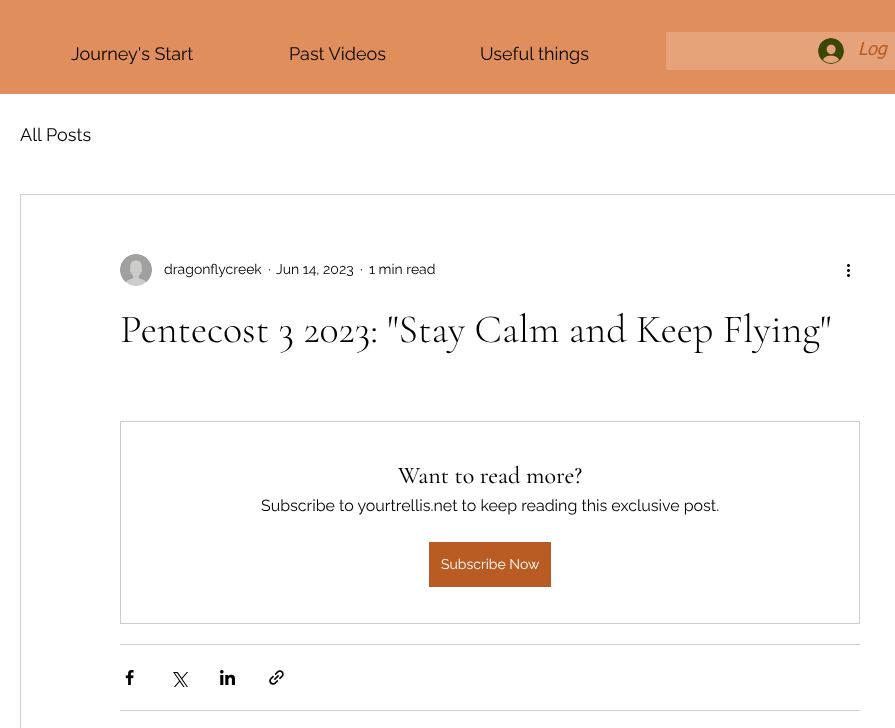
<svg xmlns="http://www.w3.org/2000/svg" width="895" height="728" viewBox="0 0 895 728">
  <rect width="100%" height="100%" fill="rgb(224,142,92)"/>
  <g font-family="Raleway" font-size="18" fill="rgb(0,0,0)">
    <text x="71" y="60">Journey's Start</text>
    <text x="289" y="60">Past Videos</text>
    <text x="480" y="60">Useful things</text>
  </g>
  <rect x="666" y="32" width="229" height="38" fill="rgb(230,163,123)"/>
  <image x="818" y="38" width="26" height="26" href="pic1.png"/>
  <text x="858" y="55" font-family="tahoma" font-size="18" font-style="italic" fill="rgb(184,92,35)">Log</text>
  <rect x="0" y="94" width="895" height="634" fill="rgb(255,255,255)"/>
  <text x="20" y="141" font-family="Raleway" font-size="18" fill="rgb(0,0,0)">All Posts</text>
  <rect x="20.5" y="194.5" width="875" height="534" fill="none" stroke="rgb(207,207,207)"/>
  <image x="120" y="254" width="32" height="32" href="pic2.png"/>
  <g font-family="Raleway" font-size="14" fill="rgb(0,0,0)">
    <text x="164" y="274">dragonflycreek</text>
    <text x="268" y="274">·</text>
    <text x="276" y="274">Jun 14, 2023</text>
    <text x="360" y="274">·</text>
    <text x="369" y="274">1 min read</text>
  </g>
  <image x="847" y="264" width="3" height="13" href="pic3.png"/>
  <text x="120" y="342" font-family="Cormorant Garamond" font-size="40" font-weight="300" fill="rgb(0,0,0)">Pentecost 3 2023: "Stay Calm and Keep Flying"</text>
  <rect x="120.5" y="421.5" width="739" height="202" fill="none" stroke="rgb(204,204,204)"/>
  <text x="398" y="483" font-family="Cormorant Garamond" font-size="24" font-weight="500" fill="rgb(0,0,0)">Want to read more?</text>
  <text x="261" y="511" font-family="Raleway" font-size="16" fill="rgb(0,0,0)">Subscribe to yourtrellis.net to keep reading this exclusive post.</text>
  <rect x="429" y="542" width="122" height="45" fill="rgb(184,92,35)"/>
  <text x="441" y="569" font-family="Raleway" font-size="14" fill="rgb(255,255,255)">Subscribe Now</text>
  <rect x="120" y="644" width="740" height="1" fill="rgb(204,204,204)"/>
  <image x="125" y="670" width="9" height="15" href="pic4.png"/>
  <image x="173" y="672" width="15" height="15" href="pic5.png"/>
  <image x="220" y="670" width="15" height="15" href="pic6.png"/>
  <image x="269" y="670" width="15" height="15" href="pic7.png"/>
  <rect x="120" y="710" width="740" height="1" fill="rgb(204,204,204)"/>
</svg>
